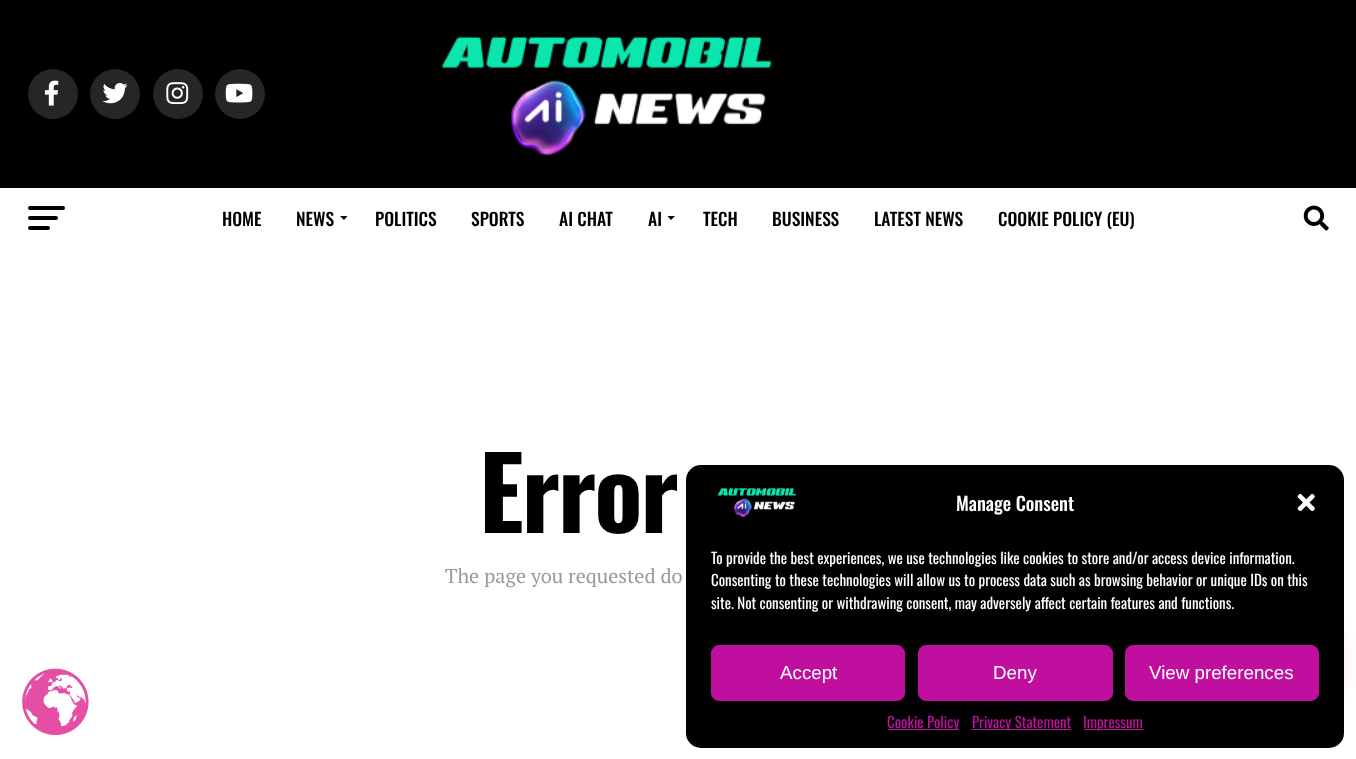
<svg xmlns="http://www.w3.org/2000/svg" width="1356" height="759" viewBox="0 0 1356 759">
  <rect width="100%" height="100%" fill="rgb(255,255,255)"/>
  <rect x="0" y="0" width="1356" height="188" fill="rgb(0,0,0)"/>
  <circle cx="53" cy="94" r="25" fill="rgb(38,38,38)"/>
  <image x="44" y="80" width="15" height="26" href="pic1.png"/>
  <circle cx="115" cy="94" r="25" fill="rgb(38,38,38)"/>
  <image x="102" y="83" width="26" height="21" href="pic2.png"/>
  <circle cx="178" cy="94" r="25" fill="rgb(38,38,38)"/>
  <image x="166" y="82" width="23" height="23" href="pic3.png"/>
  <circle cx="240" cy="94" r="25" fill="rgb(38,38,38)"/>
  <image x="225" y="83" width="28" height="20" href="pic4.png"/>
  <image x="441" y="36" width="331" height="120" href="pic5.png"/>
  <rect x="28" y="206" width="37" height="4" rx="2" fill="rgb(0,0,0)"/>
  <rect x="28" y="216" width="30" height="4" rx="2" fill="rgb(0,0,0)"/>
  <rect x="28" y="226" width="22" height="4" rx="2" fill="rgb(0,0,0)"/>
  <g font-family="Oswald" font-size="17.5" font-weight="500" fill="rgb(0,0,0)">
    <text x="222" y="226">HOME</text>
    <text x="296" y="226">NEWS</text>
  </g>
  <path d="M340 216H347.5L344 220Z" fill="rgb(0,0,0)"/>
  <g font-family="Oswald" font-size="17.5" font-weight="500" fill="rgb(0,0,0)">
    <text x="375" y="226">POLITICS</text>
    <text x="471" y="226">SPORTS</text>
    <text x="559" y="226">AI CHAT</text>
    <text x="648" y="226">AI</text>
  </g>
  <path d="M667.5 216H675L671 220Z" fill="rgb(0,0,0)"/>
  <g font-family="Oswald" font-size="17.5" font-weight="500" fill="rgb(0,0,0)">
    <text x="703" y="226">TECH</text>
    <text x="772" y="226">BUSINESS</text>
    <text x="874" y="226">LATEST NEWS</text>
    <text x="998" y="226">COOKIE POLICY (EU)</text>
  </g>
  <image x="1303" y="205" width="26" height="26" href="pic6.png"/>
  <text x="479" y="533" font-family="Oswald" font-size="100" font-weight="bold" letter-spacing="-2" fill="rgb(0,0,0)">Error</text>
  <text x="445" y="583" font-family="PT Serif" font-size="20" fill="rgb(153,153,153)">The page you requested do</text>
  <rect x="1249" y="625" width="75" height="75" rx="37.5" fill="rgba(206,32,122,0.6)" filter="blur(15px)"/>
  <rect x="1249" y="625" width="75" height="75" rx="37.5" fill="rgba(206,32,122,0.6)" filter="blur(15px)"/>
  <rect x="686" y="465" width="658" height="283" rx="15" fill="rgb(0,0,0)"/>
  <image x="717" y="488" width="80" height="29" href="pic7.png"/>
  <text x="956" y="511" font-family="Oswald" font-size="18.75" font-weight="500" fill="rgb(255,255,255)">Manage Consent</text>
  <image x="1297" y="493" width="18" height="19" href="pic8.png"/>
  <g font-family="Oswald" font-size="15" fill="rgb(255,255,255)">
    <text>
      <tspan x="711" y="564">To provide the best experiences, we use technologies like cookies to store and/or access device information.</tspan>
      <tspan x="711" y="586">Consenting to these technologies will allow us to process data such as browsing behavior or unique IDs on this</tspan>
      <tspan x="711" y="609">site. Not consenting or withdrawing consent, may adversely affect certain features and functions.</tspan>
    </text>
  </g>
  <rect x="711.5" y="645.5" width="193" height="55" rx="7.5" fill="rgb(192,15,159)" stroke="rgb(192,15,159)"/>
  <text x="780" y="679" font-family="Liberation Sans" font-size="18.75" fill="rgb(255,255,255)">Accept</text>
  <rect x="918.5" y="645.5" width="194" height="55" rx="7.5" fill="rgb(192,15,159)" stroke="rgb(192,15,159)"/>
  <text x="993" y="679" font-family="Liberation Sans" font-size="18.75" fill="rgb(255,255,255)">Deny</text>
  <rect x="1125.5" y="645.5" width="193" height="55" rx="7.5" fill="rgb(192,15,159)" stroke="rgb(192,15,159)"/>
  <text x="1149" y="679" font-family="Liberation Sans" font-size="18.75" fill="rgb(255,255,255)">View preferences</text>
  <rect x="888" y="729" width="71" height="1" fill="rgb(192,15,159)"/>
  <text x="887" y="728" font-family="Oswald" font-size="15" fill="rgb(192,15,159)">Cookie Policy</text>
  <rect x="971" y="729" width="100" height="1" fill="rgb(192,15,159)"/>
  <text x="972" y="728" font-family="Oswald" font-size="15" fill="rgb(192,15,159)">Privacy Statement</text>
  <rect x="1084" y="729" width="59" height="1" fill="rgb(192,15,159)"/>
  <text x="1083" y="728" font-family="Oswald" font-size="15" fill="rgb(192,15,159)">Impressum</text>
  <image x="22" y="668" width="67" height="68" href="pic9.png"/>
</svg>
